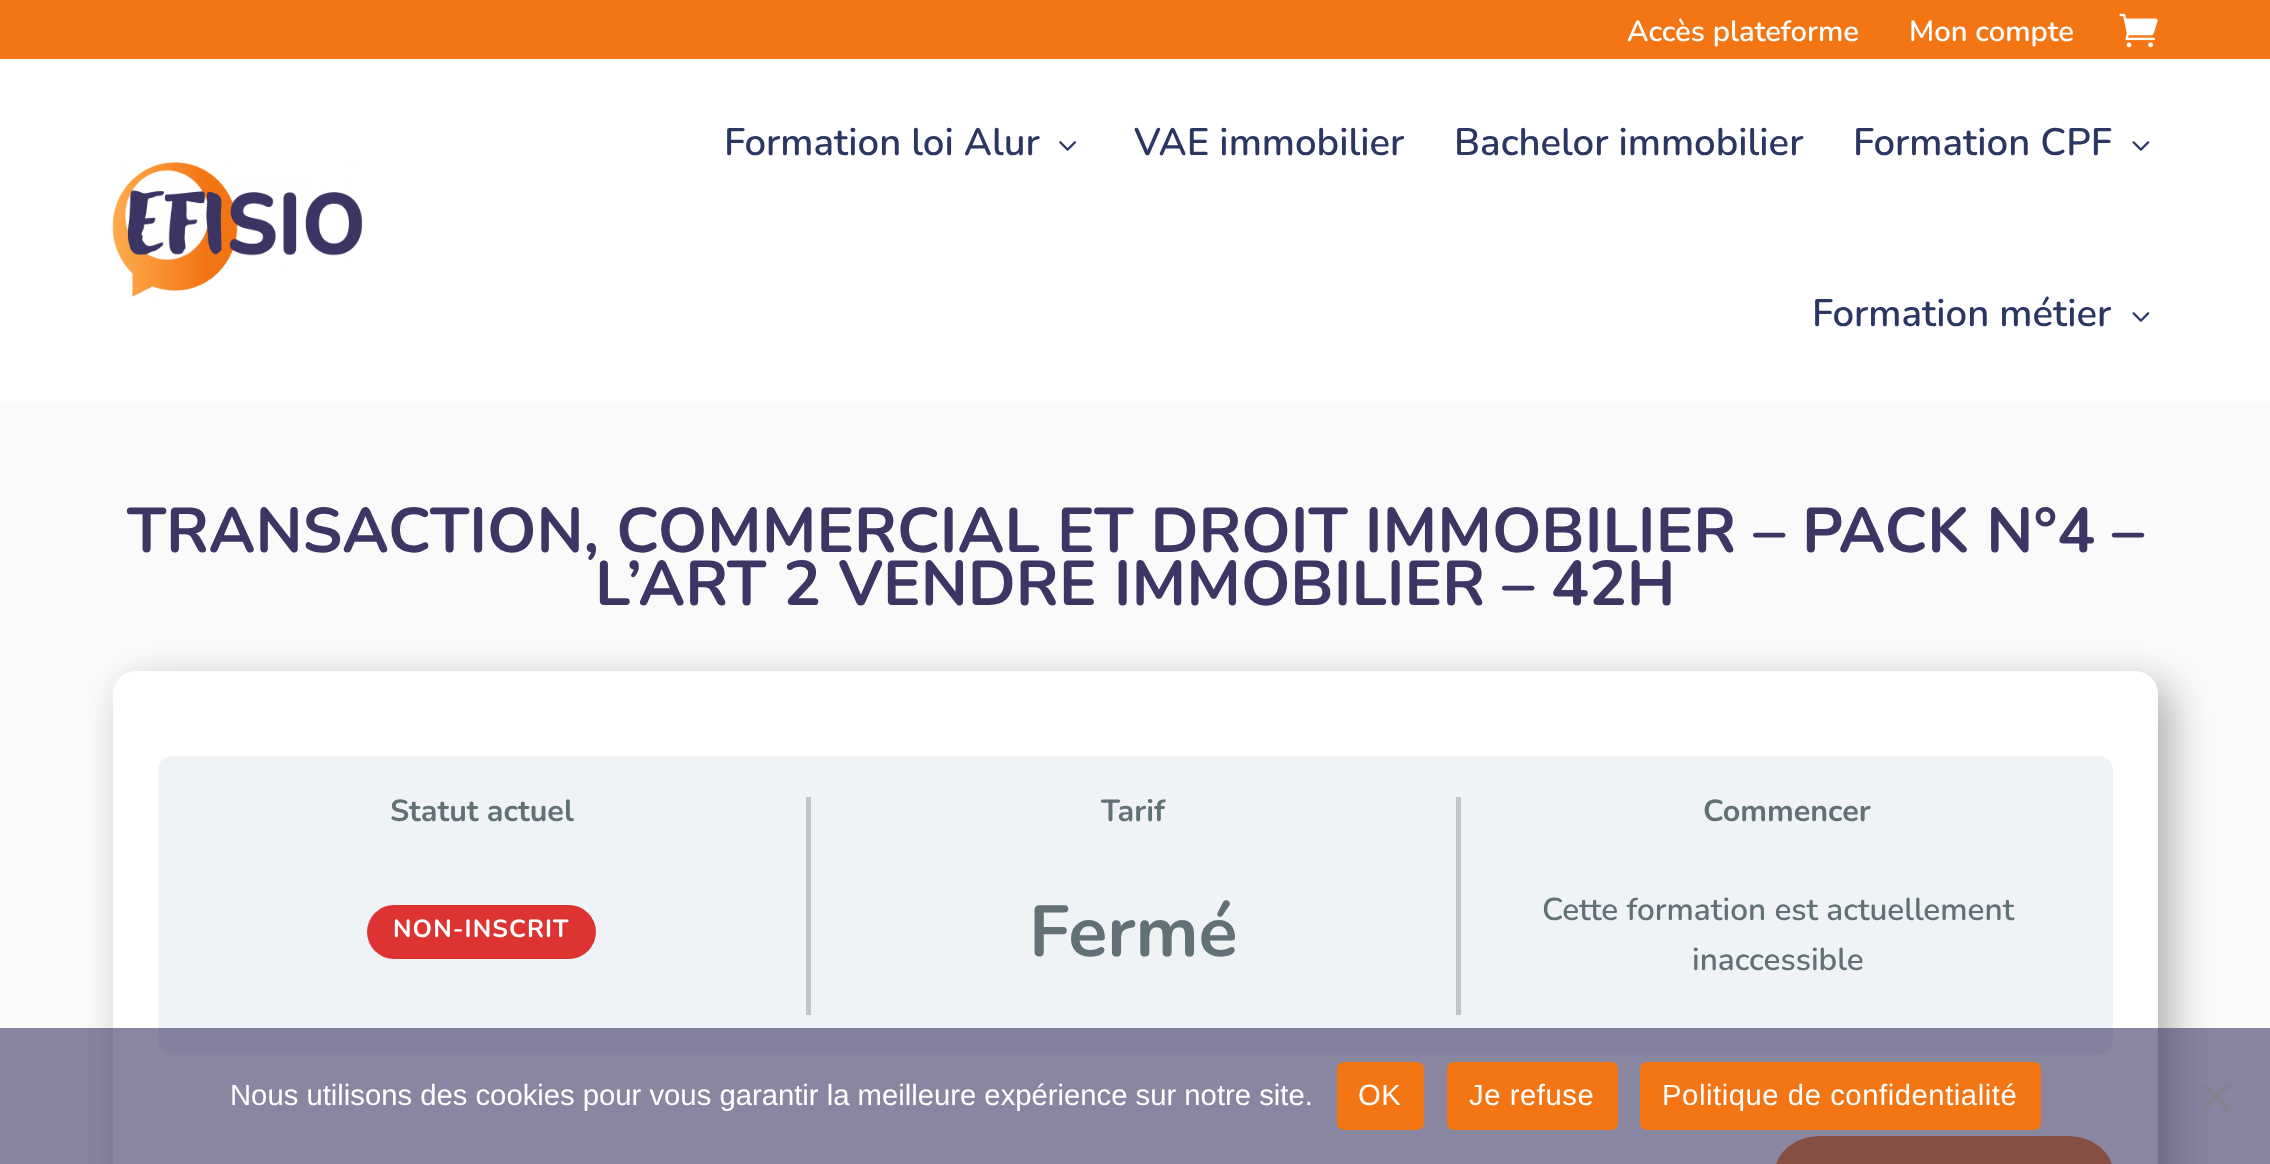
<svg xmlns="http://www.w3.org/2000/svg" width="2270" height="1164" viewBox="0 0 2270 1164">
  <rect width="100%" height="100%" fill="rgb(255,255,255)"/>
  <rect x="0" y="0" width="2270" height="59" fill="rgb(244,117,20)"/>
  <g font-family="'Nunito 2'" font-size="29.25" font-weight="200" fill="rgb(255,255,255)">
    <text x="1627" y="41">Accès plateforme</text>
    <text x="1909" y="41">Mon compte</text>
  </g>
  <image x="2119" y="13" width="39" height="35" href="pic1.png"/>
  <image x="112" y="162" width="251" height="135" href="pic2.png"/>
  <text x="724" y="155" font-family="'Nunito 2'" font-size="38.25" font-weight="200" fill="rgb(43,54,99)">Formation loi Alur</text>
  <image x="1059" y="141" width="17" height="10" href="pic3.png"/>
  <g font-family="'Nunito 2'" font-size="38.25" font-weight="200" fill="rgb(43,54,99)">
    <text x="1134" y="155">VAE immobilier</text>
    <text x="1454" y="155">Bachelor immobilier</text>
    <text x="1853" y="155">Formation CPF</text>
  </g>
  <image x="2132" y="141" width="18" height="10" href="pic4.png"/>
  <text x="1812" y="326" font-family="'Nunito 2'" font-size="38.25" font-weight="200" fill="rgb(43,54,99)">Formation métier</text>
  <image x="2132" y="312" width="18" height="10" href="pic4.png"/>
  <rect x="0" y="401" width="2270" height="763" fill="rgb(250,250,250)"/>
  <g font-family="Nunito" font-size="63" font-weight="200" fill="rgb(59,54,99)">
    <text x="127" y="552">TRANSACTION, COMMERCIAL ET DROIT IMMOBILIER – PACK N°4 –</text>
    <text x="595" y="605">L’ART 2 VENDRE IMMOBILIER – 42H</text>
  </g>
  <rect x="126" y="684" width="2045" height="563" rx="23" fill="rgba(0,0,0,0.3)" filter="blur(20px)"/>
  <rect x="113" y="671" width="2045" height="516" rx="23" fill="rgb(255,255,255)"/>
  <rect x="158" y="756" width="1955" height="299" rx="14" fill="rgb(240,243,246)"/>
  <rect x="806" y="797" width="5" height="218" fill="rgb(190,197,203)"/>
  <text x="390" y="821" font-family="Nunito" font-size="30.5" font-weight="200" fill="rgb(97,113,117)">Statut actuel</text>
  <rect x="367" y="905" width="229" height="54" rx="27" fill="rgb(221,51,51)"/>
  <text x="393" y="937" font-family="Nunito" font-size="24.75" font-weight="200" letter-spacing="1.1" fill="rgb(255,255,255)">NON-INSCRIT</text>
  <rect x="1456" y="797" width="5" height="218" fill="rgb(190,197,203)"/>
  <text x="1101" y="821" font-family="Nunito" font-size="30.5" font-weight="200" fill="rgb(97,113,117)">Tarif</text>
  <text x="1029" y="956" font-family="Nunito" font-size="72" font-weight="200" fill="rgb(97,113,117)">Fermé</text>
  <text x="1703" y="821" font-family="Nunito" font-size="30.5" font-weight="200" fill="rgb(97,113,117)">Commencer</text>
  <g font-family="'Nunito 2'" font-size="31.5" font-weight="200" fill="rgb(97,113,117)">
    <text x="1542" y="920">Cette formation est actuellement</text>
    <text x="1692" y="970">inaccessible</text>
  </g>
  <rect x="1775" y="1136" width="338" height="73" rx="45" fill="rgb(244,117,20)"/>
  <rect x="0" y="1028" width="2270" height="136" fill="rgba(59,54,99,0.6)"/>
  <text x="230" y="1105" font-family="Liberation Sans" font-size="29.25" fill="rgb(255,255,255)">Nous utilisons des cookies pour vous garantir la meilleure expérience sur notre site.</text>
  <rect x="1337" y="1062" width="87" height="68" rx="7" fill="rgb(244,117,20)"/>
  <text x="1358" y="1105" font-family="Liberation Sans" font-size="29.25" letter-spacing="0.55" fill="rgb(255,255,255)">OK</text>
  <rect x="1447" y="1062" width="171" height="68" rx="7" fill="rgb(244,117,20)"/>
  <text x="1469" y="1105" font-family="Liberation Sans" font-size="29.25" letter-spacing="0.55" fill="rgb(255,255,255)">Je refuse</text>
  <rect x="1640" y="1062" width="401" height="68" rx="7" fill="rgb(244,117,20)"/>
  <text x="1662" y="1105" font-family="Liberation Sans" font-size="29.25" letter-spacing="0.55" fill="rgb(255,255,255)">Politique de confidentialité</text>
  <path d="M2226.5 1084L2230 1087L2206 1111L2202.5 1108Z" fill="rgb(131,130,143)"/>
  <path d="M2202.5 1087L2206 1084L2230 1108L2226.5 1111Z" fill="rgb(131,130,143)"/>
</svg>
